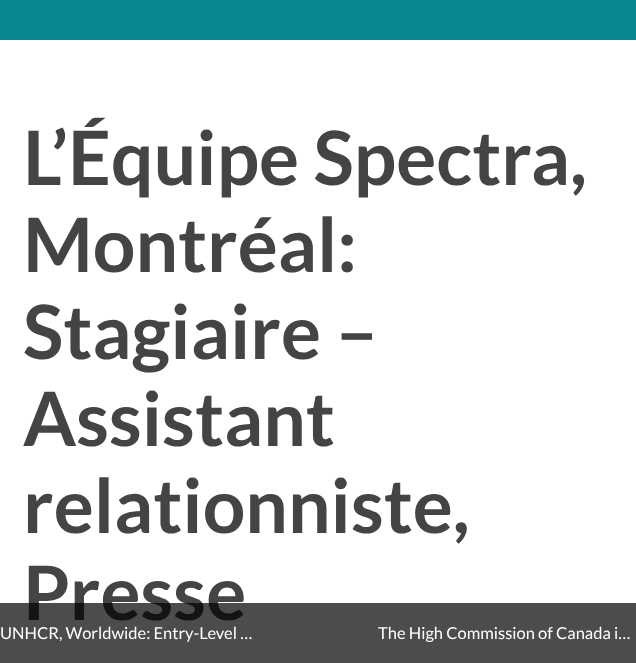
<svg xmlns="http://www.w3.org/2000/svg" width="636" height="663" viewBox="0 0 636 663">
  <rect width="100%" height="100%" fill="rgb(255,255,255)"/>
  <rect x="0" y="0" width="636" height="40" fill="rgb(10,134,144)"/>
  <g font-family="Lato" font-size="75" font-weight="bold" fill="rgb(68,68,68)">
    <text>
      <tspan x="23" y="185">L’Équipe Spectra,</tspan>
      <tspan x="23" y="272">Montréal:</tspan>
      <tspan x="23" y="359">Stagiaire –</tspan>
      <tspan x="23" y="446">Assistant</tspan>
      <tspan x="23" y="533">relationniste,</tspan>
      <tspan x="23" y="620">Presse</tspan>
    </text>
  </g>
  <rect x="0" y="603" width="636" height="60" fill="rgba(0,0,0,0.7)"/>
  <g font-family="Lato" font-size="16.5" fill="rgb(255,255,255)">
    <text x="0" y="639">UNHCR, Worldwide: Entry-Level …</text>
    <text x="378" y="639">The High Commission of Canada i…</text>
  </g>
</svg>
